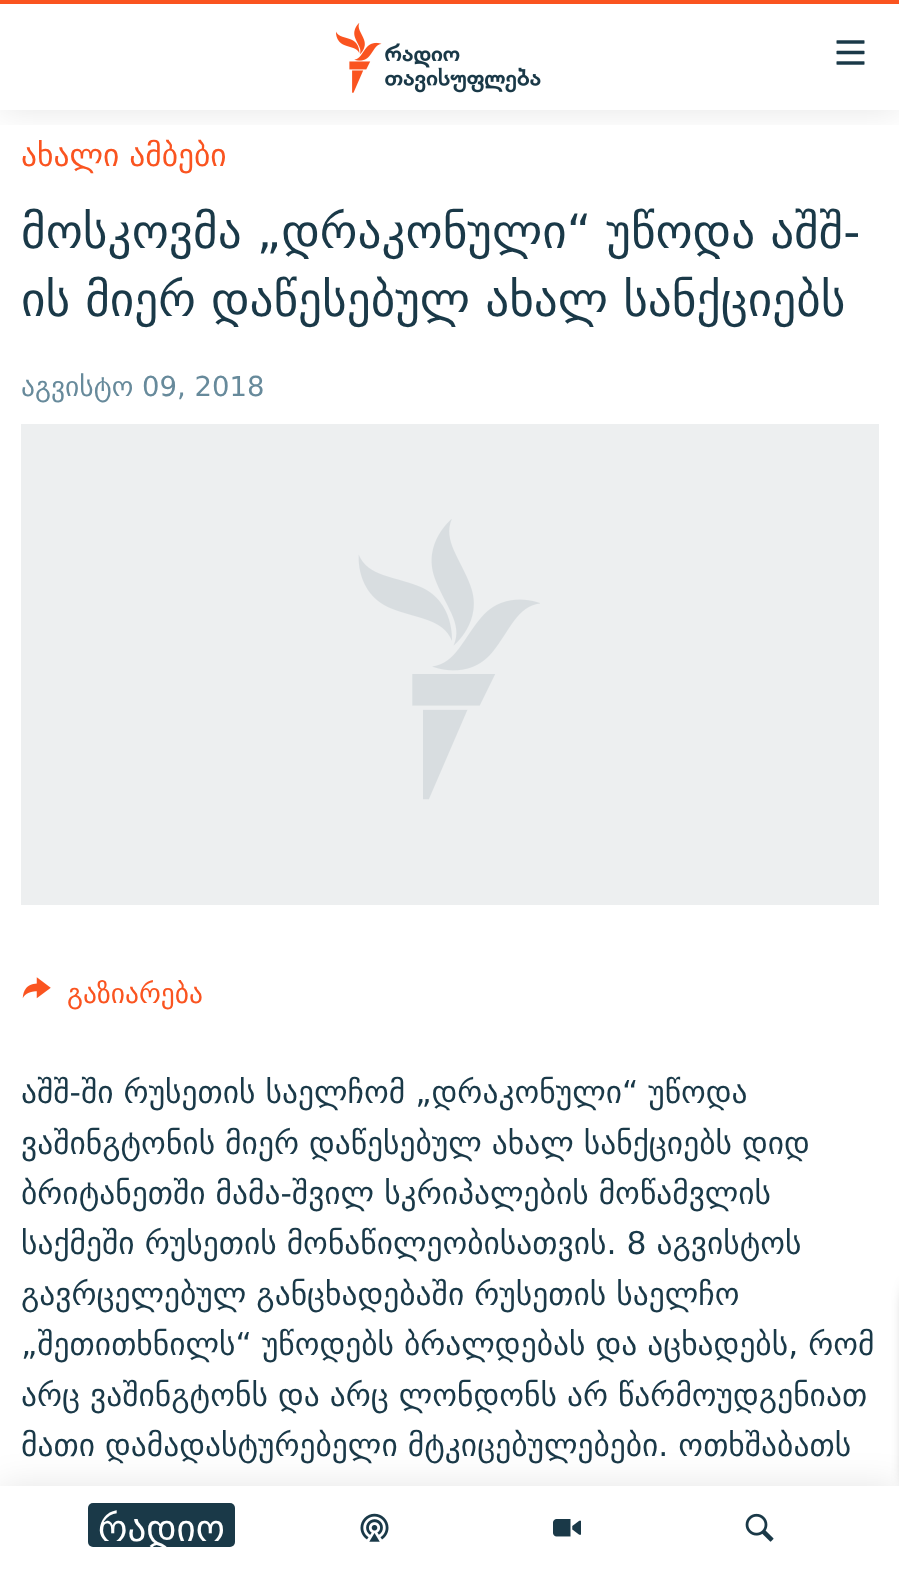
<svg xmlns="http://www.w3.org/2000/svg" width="899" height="1573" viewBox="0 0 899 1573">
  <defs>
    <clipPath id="clip1"><rect x="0" y="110" width="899" height="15"/></clipPath>
  </defs>
  <rect width="100%" height="100%" fill="rgb(255,255,255)"/>
  <text x="21" y="166" font-family="DejaVu Sans" font-size="31.5" fill="rgb(250,84,32)">ახალი ამბები</text>
  <g font-family="DejaVu Sans" font-size="47.25" fill="rgb(26,57,72)">
    <text>
      <tspan x="21" y="248">მოსკოვმა „დრაკონული“ უწოდა აშშ-</tspan>
      <tspan x="21" y="316">ის მიერ დაწესებულ ახალ სანქციებს</tspan>
    </text>
  </g>
  <text x="21" y="396" font-family="DejaVu Sans" font-size="27.5" fill="rgb(103,138,155)">აგვისტო 09, 2018</text>
  <rect x="21" y="424" width="858" height="481" fill="rgb(237,239,240)"/>
  <image x="358" y="519" width="182" height="281" href="pic1.png"/>
  <image x="22" y="977" width="29" height="22" href="pic2.png"/>
  <text x="67" y="1003" font-family="DejaVu Sans" font-size="27.5" fill="rgb(250,84,32)">გაზიარება</text>
  <g font-family="DejaVu Sans" font-size="31.5" fill="rgb(26,57,72)">
    <text>
      <tspan x="21" y="1103">აშშ-ში რუსეთის საელჩომ „დრაკონული“ უწოდა</tspan>
      <tspan x="21" y="1154">ვაშინგტონის მიერ დაწესებულ ახალ სანქციებს დიდ</tspan>
      <tspan x="21" y="1204">ბრიტანეთში მამა-შვილ სკრიპალების მოწამვლის</tspan>
      <tspan x="21" y="1254">საქმეში რუსეთის მონაწილეობისათვის. 8 აგვისტოს</tspan>
      <tspan x="21" y="1305">გავრცელებულ განცხადებაში რუსეთის საელჩო</tspan>
      <tspan x="21" y="1355">„შეთითხნილს“ უწოდებს ბრალდებას და აცხადებს, რომ</tspan>
      <tspan x="21" y="1406">არც ვაშინგტონს და არც ლონდონს არ წარმოუდგენიათ</tspan>
      <tspan x="21" y="1456">მათი დამადასტურებელი მტკიცებულებები. ოთხშაბათს</tspan>
    </text>
  </g>
  <rect x="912" y="1288" width="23" height="198" rx="9" fill="rgba(0,0,0,0.85)" filter="blur(9px)"/>
  <g clip-path="url(#clip1)">
    <rect x="0" y="0" width="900" height="110" fill="rgba(0,0,0,0.1)" filter="blur(17.5px)"/>
  </g>
  <rect x="0" y="0" width="899" height="4" fill="rgb(250,84,32)"/>
  <image x="336" y="23" width="205" height="70" href="pic3.png"/>
  <image x="836" y="40" width="29" height="25" href="pic4.png"/>
  <rect x="0" y="1486" width="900" height="87" fill="rgba(0,0,0,0.1)" filter="blur(17.5px)"/>
  <rect x="0" y="1486" width="899" height="87" fill="rgb(255,255,255)"/>
  <rect x="88" y="1503" width="147" height="44" rx="5" fill="rgb(26,57,72)"/>
  <text x="98" y="1541" font-family="DejaVu Sans" font-size="37" fill="rgb(255,255,255)">რადიო</text>
  <image x="360" y="1513" width="29" height="29" href="pic5.png"/>
  <image x="553" y="1519" width="28" height="18" href="pic6.png"/>
  <image x="745" y="1513" width="29" height="29" href="pic7.png"/>
</svg>
